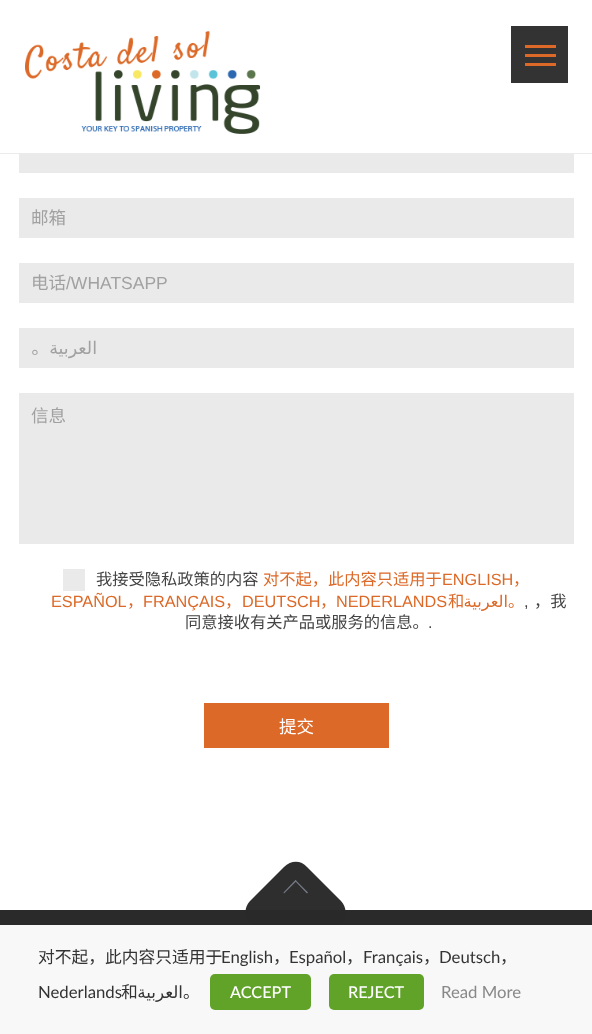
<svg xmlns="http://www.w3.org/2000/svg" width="592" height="1034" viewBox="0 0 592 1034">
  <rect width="100%" height="100%" fill="rgb(255,255,255)"/>
  <rect x="0" y="153" width="592" height="1" fill="rgb(235,235,235)"/>
  <image x="25" y="31" width="236" height="103" href="pic1.png"/>
  <rect x="511" y="26" width="57" height="57" fill="rgb(51,51,51)"/>
  <rect x="525" y="45" width="31" height="3" fill="rgb(220,105,39)"/>
  <rect x="525" y="54" width="31" height="3" fill="rgb(220,105,39)"/>
  <rect x="525" y="63" width="31" height="3" fill="rgb(220,105,39)"/>
  <rect x="19" y="154" width="555" height="19" fill="rgb(234,234,234)"/>
  <rect x="19" y="198" width="555" height="40" fill="rgb(234,234,234)"/>
  <text x="31" y="224" font-family="Noto Sans CJK SC" font-size="17.5" fill="rgb(161,161,161)">邮箱</text>
  <rect x="19" y="263" width="555" height="40" fill="rgb(234,234,234)"/>
  <text x="31" y="289" font-family="Noto Sans CJK SC" font-size="17.5" fill="rgb(161,161,161)">电话</text>
  <text x="66" y="289" font-family="Liberation Sans" font-size="17.5" fill="rgb(161,161,161)">/WHATSAPP</text>
  <rect x="19" y="328" width="555" height="40" fill="rgb(234,234,234)"/>
  <text x="49" y="354" font-family="Noto Sans CJK SC" font-size="17.5" direction="rtl" fill="rgb(161,161,161)">。</text>
  <text x="97" y="354" font-family="DejaVu Sans" font-size="17.5" direction="rtl" fill="rgb(161,161,161)">العربية</text>
  <rect x="19" y="393" width="555" height="151" fill="rgb(234,234,234)"/>
  <text x="31" y="422" font-family="Noto Sans CJK SC" font-size="17.5" fill="rgb(161,161,161)">信息</text>
  <rect x="63" y="569" width="22" height="22" fill="rgb(234,234,234)"/>
  <text x="96" y="585" font-family="Noto Sans CJK SC" font-size="16.25" fill="rgb(68,68,68)">我接受隐私政策的内容</text>
  <text x="263" y="585" font-family="Noto Sans CJK SC" font-size="16.25" fill="rgb(220,105,39)">对不起，此内容只适用于</text>
  <text x="442" y="585" font-family="Liberation Sans" font-size="16.25" fill="rgb(220,105,39)">ENGLISH</text>
  <text x="513" y="585" font-family="Noto Sans CJK SC" font-size="16.25" fill="rgb(220,105,39)">，</text>
  <text x="51" y="607" font-family="Liberation Sans" font-size="16.25" fill="rgb(220,105,39)">ESPAÑOL</text>
  <text x="127" y="607" font-family="Noto Sans CJK SC" font-size="16.25" fill="rgb(220,105,39)">，</text>
  <text x="143" y="607" font-family="Liberation Sans" font-size="16.25" fill="rgb(220,105,39)">FRANÇAIS</text>
  <text x="225" y="607" font-family="Noto Sans CJK SC" font-size="16.25" fill="rgb(220,105,39)">，</text>
  <text x="242" y="607" font-family="Liberation Sans" font-size="16.25" fill="rgb(220,105,39)">DEUTSCH</text>
  <text x="320" y="607" font-family="Noto Sans CJK SC" font-size="16.25" fill="rgb(220,105,39)">，</text>
  <text x="336" y="607" font-family="Liberation Sans" font-size="16.25" fill="rgb(220,105,39)">NEDERLANDS</text>
  <text x="448" y="607" font-family="Noto Sans CJK SC" font-size="16.25" fill="rgb(220,105,39)">和</text>
  <text x="508" y="607" font-family="DejaVu Sans" font-size="16.25" direction="rtl" fill="rgb(220,105,39)">العربية</text>
  <text x="508" y="607" font-family="Noto Sans CJK SC" font-size="16.25" fill="rgb(220,105,39)">。</text>
  <text x="524" y="607" font-family="Liberation Sans" font-size="16.25" fill="rgb(68,68,68)">,</text>
  <g font-family="Noto Sans CJK SC" font-size="16.25" fill="rgb(68,68,68)">
    <text x="534" y="607">，我</text>
    <text x="185" y="628">同意接收有关产品或服务的信息。</text>
  </g>
  <text x="428" y="628" font-family="Liberation Sans" font-size="16.25" fill="rgb(68,68,68)">.</text>
  <rect x="204" y="703" width="185" height="45" fill="rgb(220,105,39)"/>
  <text x="279" y="733" font-family="Noto Sans CJK SC" font-size="17.5" fill="rgb(255,255,255)">提交</text>
  <rect x="0" y="910" width="592" height="63" fill="rgb(42,42,42)"/>
  <path d="M307 867L341 901C347 907 347 917 341 923L307 957C301 964 291 964 284 957L250 923C244 917 244 907 250 901L284 867C291 860 301 860 307 867Z" fill="rgba(42,42,42,0.98)"/>
  <path d="M295.5 880L308 892.5L307 893.5L295 881Z" fill="rgb(119,124,136)"/>
  <path d="M295.5 880L296.5 881L284 893.5L283.5 892.5Z" fill="rgb(119,124,136)"/>
  <rect x="0" y="973" width="592" height="61" fill="rgb(33,33,33)"/>
  <rect x="0" y="925" width="592" height="109" fill="rgba(255,255,255,0.97)"/>
  <text x="38" y="963" font-family="Noto Sans CJK SC" font-size="16.75" fill="rgb(51,51,51)">对不起，此内容只适用于</text>
  <text x="221" y="963" font-family="Lato" font-size="16.75" fill="rgb(51,51,51)">English</text>
  <text x="273" y="963" font-family="Noto Sans CJK SC" font-size="16.75" fill="rgb(51,51,51)">，</text>
  <text x="289" y="963" font-family="Lato" font-size="16.75" fill="rgb(51,51,51)">Español</text>
  <text x="346" y="963" font-family="Noto Sans CJK SC" font-size="16.75" fill="rgb(51,51,51)">，</text>
  <text x="363" y="963" font-family="Lato" font-size="16.75" fill="rgb(51,51,51)">Français</text>
  <text x="423" y="963" font-family="Noto Sans CJK SC" font-size="16.75" fill="rgb(51,51,51)">，</text>
  <text x="439" y="963" font-family="Lato" font-size="16.75" fill="rgb(51,51,51)">Deutsch</text>
  <text x="500" y="963" font-family="Noto Sans CJK SC" font-size="16.75" fill="rgb(51,51,51)">，</text>
  <text x="38" y="998" font-family="Lato" font-size="16.75" fill="rgb(51,51,51)">Nederlands</text>
  <text x="121" y="998" font-family="Noto Sans CJK SC" font-size="16.75" fill="rgb(51,51,51)">和</text>
  <text x="183" y="998" font-family="DejaVu Sans" font-size="16.75" direction="rtl" fill="rgb(51,51,51)">العربية</text>
  <text x="183" y="998" font-family="Noto Sans CJK SC" font-size="16.75" fill="rgb(51,51,51)">。</text>
  <rect x="210" y="974" width="101" height="36" rx="5" fill="rgb(97,162,41)"/>
  <text x="230" y="998" font-family="Lato" font-size="16.25" font-weight="500" fill="rgb(255,255,255)">ACCEPT</text>
  <rect x="329" y="974" width="95" height="36" rx="5" fill="rgb(97,162,41)"/>
  <text x="348" y="998" font-family="Lato" font-size="16.25" font-weight="500" fill="rgb(255,255,255)">REJECT</text>
  <text x="441" y="998" font-family="Lato" font-size="16.75" fill="rgb(137,136,136)">Read More</text>
</svg>
